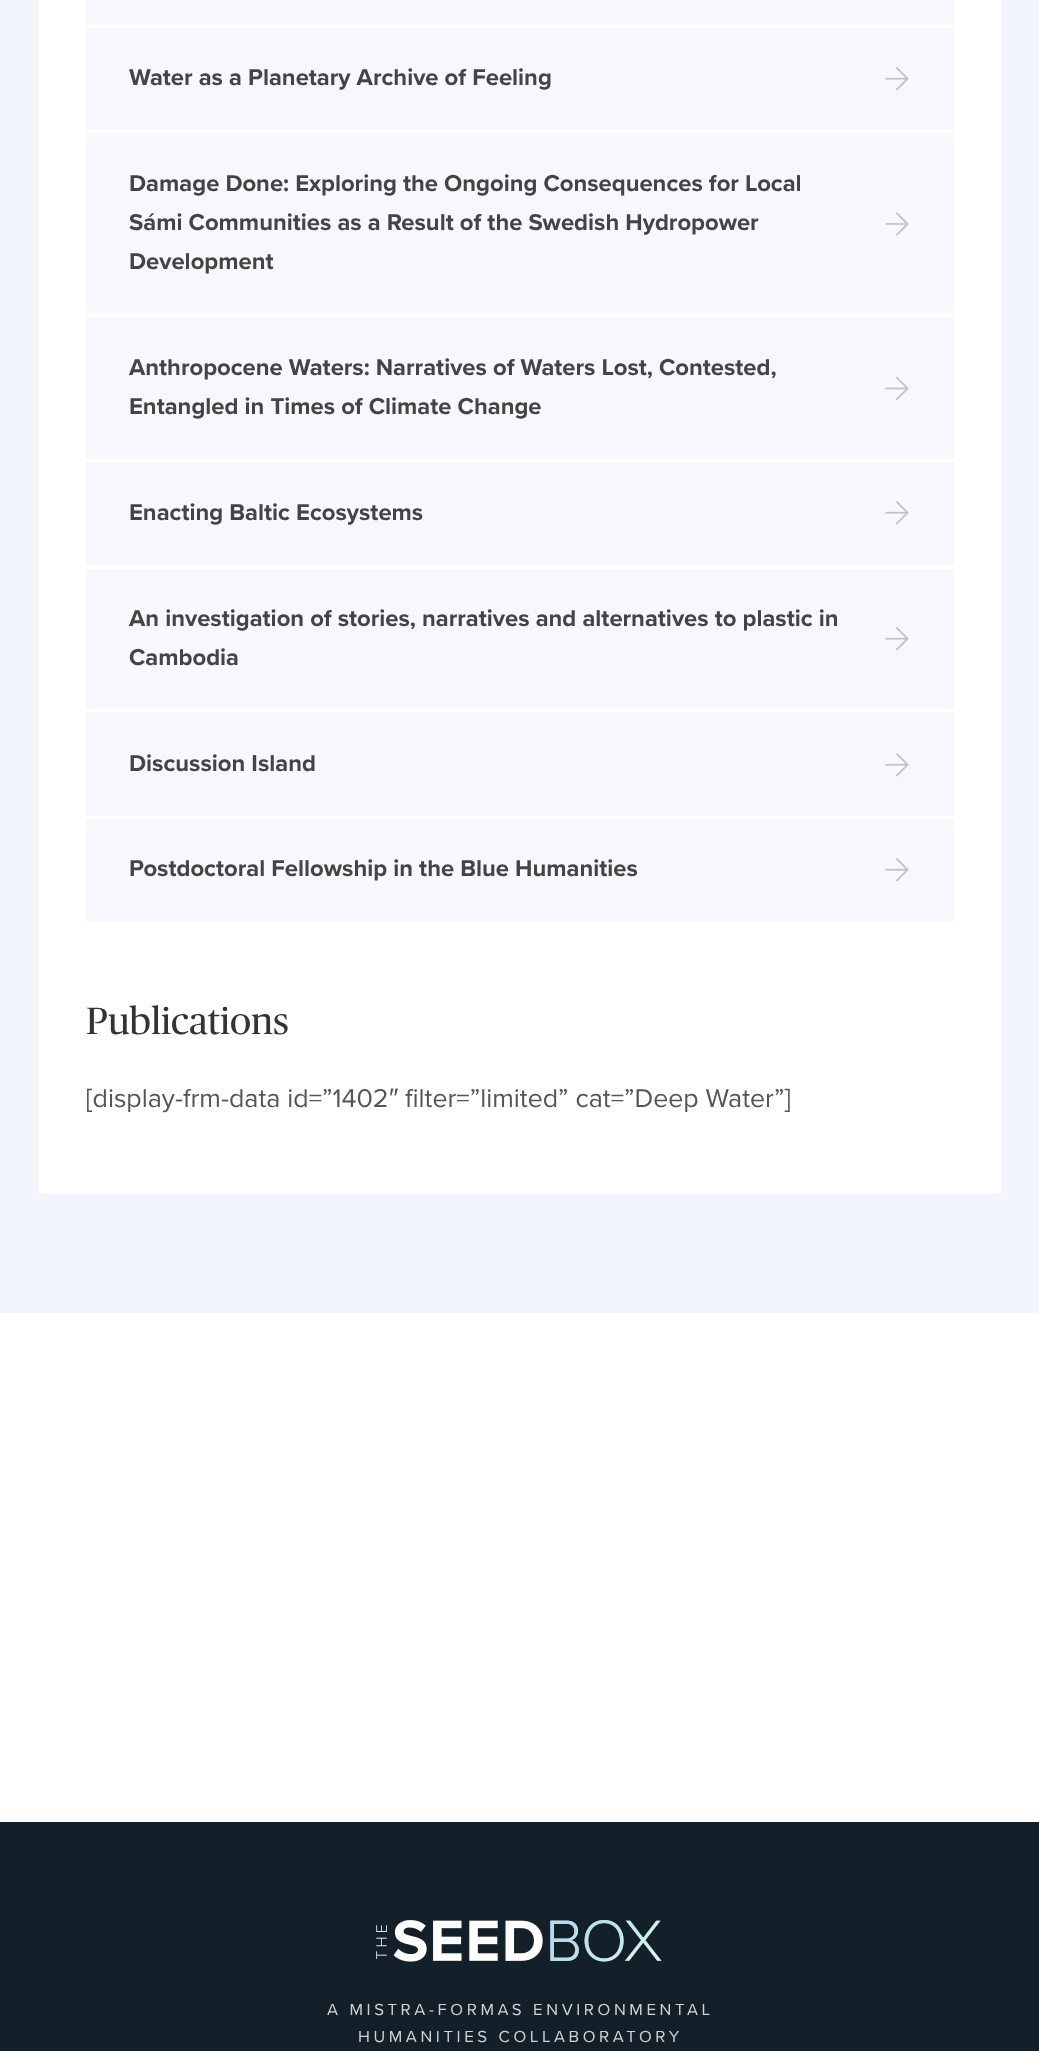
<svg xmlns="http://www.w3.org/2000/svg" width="1039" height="2051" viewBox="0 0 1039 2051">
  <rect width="100%" height="100%" fill="rgb(242,245,252)"/>
  <rect x="39" y="0" width="962" height="1194" fill="rgb(255,255,255)"/>
  <rect x="86" y="0" width="868" height="25" fill="rgb(246,248,253)"/>
  <rect x="86" y="28" width="868" height="102" fill="rgb(246,248,253)"/>
  <text x="129" y="85" font-family="Proxima Nova" font-size="23.8" font-weight="bold" fill="rgb(68,68,68)">Water as a Planetary Archive of Feeling</text>
  <image x="885" y="67" width="24" height="24" href="pic1.png"/>
  <rect x="86" y="133" width="868" height="180" fill="rgb(246,248,253)"/>
  <g font-family="Proxima Nova" font-size="23.8" font-weight="bold" fill="rgb(68,68,68)">
    <text>
      <tspan x="129" y="191">Damage Done: Exploring the Ongoing Consequences for Local</tspan>
      <tspan x="129" y="230">Sámi Communities as a Result of the Swedish Hydropower</tspan>
    </text>
  </g>
  <image x="885" y="212" width="24" height="24" href="pic2.png"/>
  <text x="129" y="269" font-family="Proxima Nova" font-size="23.8" font-weight="bold" fill="rgb(68,68,68)">Development</text>
  <rect x="86" y="317" width="868" height="142" fill="rgb(246,248,253)"/>
  <text x="129" y="375" font-family="Proxima Nova" font-size="23.8" font-weight="bold" fill="rgb(68,68,68)">Anthropocene Waters: Narratives of Waters Lost, Contested,</text>
  <image x="885" y="376" width="24" height="25" href="pic3.png"/>
  <text x="129" y="414" font-family="Proxima Nova" font-size="23.8" font-weight="bold" fill="rgb(68,68,68)">Entangled in Times of Climate Change</text>
  <rect x="86" y="462" width="868" height="103" fill="rgb(246,248,253)"/>
  <text x="129" y="520" font-family="Proxima Nova" font-size="23.8" font-weight="bold" fill="rgb(68,68,68)">Enacting Baltic Ecosystems</text>
  <image x="885" y="501" width="24" height="24" href="pic1.png"/>
  <rect x="86" y="569" width="868" height="140" fill="rgb(246,248,253)"/>
  <text x="129" y="626" font-family="Proxima Nova" font-size="23.8" font-weight="bold" fill="rgb(68,68,68)">An investigation of stories, narratives and alternatives to plastic in</text>
  <image x="885" y="627" width="24" height="24" href="pic1.png"/>
  <text x="129" y="665" font-family="Proxima Nova" font-size="23.8" font-weight="bold" fill="rgb(68,68,68)">Cambodia</text>
  <rect x="86" y="712" width="868" height="104" fill="rgb(246,248,253)"/>
  <text x="129" y="771" font-family="Proxima Nova" font-size="23.8" font-weight="bold" fill="rgb(68,68,68)">Discussion Island</text>
  <image x="885" y="753" width="24" height="24" href="pic1.png"/>
  <rect x="86" y="819" width="868" height="102" fill="rgb(246,248,253)"/>
  <text x="129" y="876" font-family="Proxima Nova" font-size="23.8" font-weight="bold" fill="rgb(68,68,68)">Postdoctoral Fellowship in the Blue Humanities</text>
  <image x="885" y="858" width="24" height="24" href="pic1.png"/>
  <text x="86" y="1034" font-family="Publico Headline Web" font-size="38" fill="rgb(51,51,51)">Publications</text>
  <text x="86" y="1107" font-family="Proxima Nova" font-size="26.75" fill="rgb(85,85,85)">[display-frm-data id=”1402</text>
  <text x="389" y="1107" font-family="Liberation Sans" font-size="26.75" fill="rgb(85,85,85)">″</text>
  <text x="405" y="1107" font-family="Proxima Nova" font-size="26.75" fill="rgb(85,85,85)">filter=”limited” cat=”Deep Water”]</text>
  <rect x="0" y="1313" width="1039" height="509" fill="rgb(255,255,255)"/>
  <rect x="0" y="1822" width="1039" height="229" fill="rgb(19,31,41)"/>
  <image x="376" y="1920" width="286" height="42" href="pic4.png"/>
  <g font-family="Proxima Nova" font-size="16.7" letter-spacing="3.6" fill="rgb(208,210,212)">
    <text x="327" y="2015">A MISTRA-FORMAS ENVIRONMENTAL</text>
    <text x="358" y="2042">HUMANITIES COLLABORATORY</text>
  </g>
</svg>
